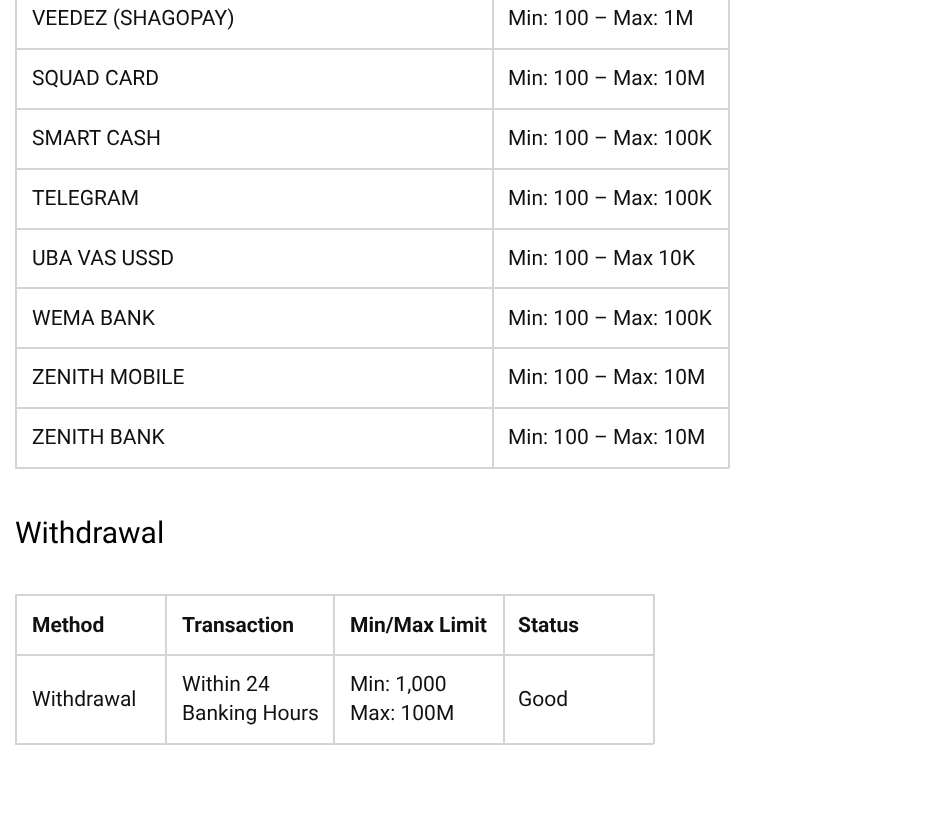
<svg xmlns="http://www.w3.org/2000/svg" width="929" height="819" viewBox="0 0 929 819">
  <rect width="100%" height="100%" fill="rgb(255,255,255)"/>
  <text x="32" y="25" font-family="Roboto" font-size="21" fill="rgb(17,17,17)">VEEDEZ (SHAGOPAY)</text>
  <rect x="492" y="48" width="237" height="2" fill="rgb(210,212,214)"/>
  <rect x="492" y="108" width="237" height="2" fill="rgb(210,212,214)"/>
  <rect x="492" y="168" width="237" height="2" fill="rgb(210,212,214)"/>
  <rect x="492" y="228" width="237" height="2" fill="rgb(210,212,214)"/>
  <rect x="492" y="287" width="237" height="2" fill="rgb(210,212,214)"/>
  <rect x="492" y="347" width="237" height="2" fill="rgb(210,212,214)"/>
  <rect x="492" y="407" width="237" height="2" fill="rgb(210,212,214)"/>
  <rect x="728" y="407" width="2" height="61" fill="rgb(210,212,214)"/>
  <rect x="492" y="467" width="237" height="2" fill="rgb(210,212,214)"/>
  <rect x="492" y="407" width="2" height="61" fill="rgb(210,212,214)"/>
  <rect x="15" y="407" width="479" height="2" fill="rgb(210,212,214)"/>
  <rect x="492" y="347" width="2" height="61" fill="rgb(210,212,214)"/>
  <rect x="15" y="347" width="479" height="2" fill="rgb(210,212,214)"/>
  <rect x="492" y="287" width="2" height="61" fill="rgb(210,212,214)"/>
  <rect x="15" y="287" width="479" height="2" fill="rgb(210,212,214)"/>
  <rect x="492" y="228" width="2" height="60" fill="rgb(210,212,214)"/>
  <rect x="15" y="228" width="479" height="2" fill="rgb(210,212,214)"/>
  <rect x="492" y="168" width="2" height="62" fill="rgb(210,212,214)"/>
  <rect x="15" y="168" width="479" height="2" fill="rgb(210,212,214)"/>
  <rect x="492" y="108" width="2" height="62" fill="rgb(210,212,214)"/>
  <rect x="15" y="108" width="479" height="2" fill="rgb(210,212,214)"/>
  <rect x="492" y="48" width="2" height="62" fill="rgb(210,212,214)"/>
  <rect x="15" y="48" width="479" height="2" fill="rgb(210,212,214)"/>
  <rect x="492" y="0" width="2" height="50" fill="rgb(210,212,214)"/>
  <text x="508" y="25" font-family="Roboto" font-size="21" fill="rgb(17,17,17)">Min: 100 – Max: 1M</text>
  <rect x="15" y="467" width="479" height="2" fill="rgb(210,212,214)"/>
  <rect x="15" y="407" width="2" height="61" fill="rgb(210,212,214)"/>
  <rect x="15" y="347" width="2" height="61" fill="rgb(210,212,214)"/>
  <rect x="15" y="287" width="2" height="61" fill="rgb(210,212,214)"/>
  <rect x="15" y="228" width="2" height="60" fill="rgb(210,212,214)"/>
  <rect x="15" y="168" width="2" height="62" fill="rgb(210,212,214)"/>
  <rect x="15" y="108" width="2" height="62" fill="rgb(210,212,214)"/>
  <rect x="15" y="0" width="2" height="110" fill="rgb(210,212,214)"/>
  <text x="32" y="85" font-family="Roboto" font-size="21" fill="rgb(17,17,17)">SQUAD CARD</text>
  <rect x="728" y="347" width="2" height="61" fill="rgb(210,212,214)"/>
  <rect x="728" y="287" width="2" height="61" fill="rgb(210,212,214)"/>
  <rect x="728" y="228" width="2" height="60" fill="rgb(210,212,214)"/>
  <rect x="728" y="168" width="2" height="62" fill="rgb(210,212,214)"/>
  <rect x="728" y="108" width="2" height="62" fill="rgb(210,212,214)"/>
  <rect x="728" y="0" width="2" height="110" fill="rgb(210,212,214)"/>
  <g font-family="Roboto" font-size="21" fill="rgb(17,17,17)">
    <text x="508" y="85">Min: 100 – Max: 10M</text>
    <text x="32" y="145">SMART CASH</text>
    <text x="508" y="145">Min: 100 – Max: 100K</text>
    <text x="32" y="205">TELEGRAM</text>
    <text x="508" y="205">Min: 100 – Max: 100K</text>
    <text x="32" y="265">UBA VAS USSD</text>
    <text x="508" y="265">Min: 100 – Max 10K</text>
    <text x="32" y="325">WEMA BANK</text>
    <text x="508" y="325">Min: 100 – Max: 100K</text>
    <text x="32" y="384">ZENITH MOBILE</text>
    <text x="508" y="384">Min: 100 – Max: 10M</text>
    <text x="32" y="444">ZENITH BANK</text>
    <text x="508" y="444">Min: 100 – Max: 10M</text>
  </g>
  <text x="15" y="543" font-family="Roboto" font-size="30" fill="rgb(0,0,0)">Withdrawal</text>
  <rect x="503" y="594" width="151" height="2" fill="rgb(210,212,214)"/>
  <rect x="503" y="654" width="151" height="2" fill="rgb(210,212,214)"/>
  <rect x="653" y="654" width="2" height="90" fill="rgb(210,212,214)"/>
  <rect x="503" y="743" width="151" height="2" fill="rgb(210,212,214)"/>
  <rect x="503" y="654" width="2" height="90" fill="rgb(210,212,214)"/>
  <rect x="333" y="654" width="171" height="2" fill="rgb(210,212,214)"/>
  <rect x="503" y="594" width="2" height="62" fill="rgb(210,212,214)"/>
  <rect x="333" y="594" width="171" height="2" fill="rgb(210,212,214)"/>
  <rect x="333" y="743" width="171" height="2" fill="rgb(210,212,214)"/>
  <rect x="333" y="654" width="2" height="90" fill="rgb(210,212,214)"/>
  <rect x="165" y="654" width="170" height="2" fill="rgb(210,212,214)"/>
  <rect x="333" y="594" width="2" height="62" fill="rgb(210,212,214)"/>
  <rect x="165" y="594" width="170" height="2" fill="rgb(210,212,214)"/>
  <rect x="165" y="743" width="170" height="2" fill="rgb(210,212,214)"/>
  <rect x="165" y="654" width="2" height="90" fill="rgb(210,212,214)"/>
  <rect x="15" y="654" width="152" height="2" fill="rgb(210,212,214)"/>
  <rect x="165" y="594" width="2" height="62" fill="rgb(210,212,214)"/>
  <rect x="15" y="594" width="152" height="2" fill="rgb(210,212,214)"/>
  <rect x="15" y="743" width="152" height="2" fill="rgb(210,212,214)"/>
  <rect x="15" y="654" width="2" height="90" fill="rgb(210,212,214)"/>
  <rect x="15" y="594" width="2" height="62" fill="rgb(210,212,214)"/>
  <g font-family="Roboto" font-size="21" font-weight="bold" fill="rgb(17,17,17)">
    <text x="32" y="632">Method</text>
    <text x="182" y="632">Transaction</text>
    <text x="350" y="632">Min/Max Limit</text>
  </g>
  <rect x="653" y="594" width="2" height="62" fill="rgb(210,212,214)"/>
  <text x="518" y="632" font-family="Roboto" font-size="21" font-weight="bold" fill="rgb(17,17,17)">Status</text>
  <g font-family="Roboto" font-size="21" fill="rgb(17,17,17)">
    <text x="32" y="706">Withdrawal</text>
    <text>
      <tspan x="182" y="691">Within 24</tspan>
      <tspan x="182" y="720">Banking Hours</tspan>
    </text>
    <text>
      <tspan x="350" y="691">Min: 1,000</tspan>
      <tspan x="350" y="720">Max: 100M</tspan>
    </text>
    <text x="518" y="706">Good</text>
  </g>
</svg>
